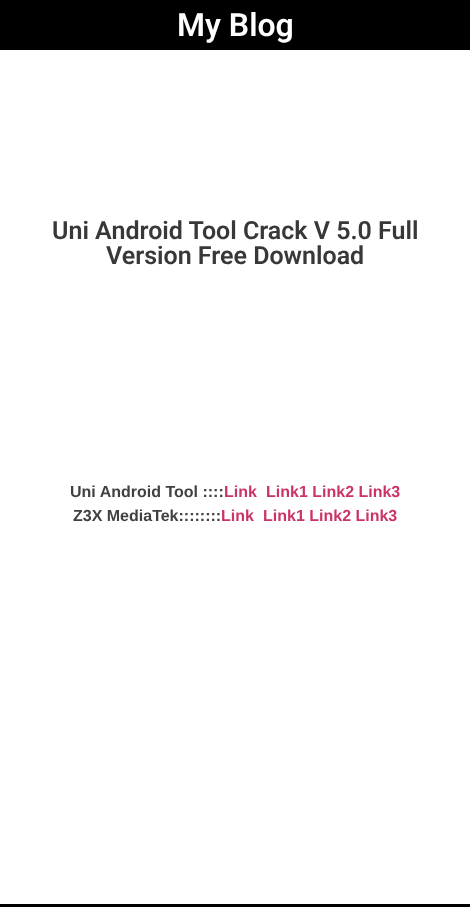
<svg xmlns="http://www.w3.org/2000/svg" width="470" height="907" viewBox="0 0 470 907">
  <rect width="100%" height="100%" fill="rgb(255,255,255)"/>
  <rect x="0" y="0" width="470" height="50" fill="rgb(0,0,0)"/>
  <text x="177" y="36" font-family="Roboto" font-size="32" font-weight="600" fill="rgb(255,255,255)">My Blog</text>
  <g font-family="Roboto" font-size="25" font-weight="600" fill="rgb(56,56,56)">
    <text x="52" y="239">Uni Android Tool Crack V 5.0 Full</text>
    <text x="106" y="264">Version Free Download</text>
  </g>
  <text x="70" y="497" font-family="Liberation Sans" font-size="16" font-weight="bold" fill="rgb(65,65,65)">Uni Android Tool ::::</text>
  <g font-family="Liberation Sans" font-size="16" font-weight="bold" fill="rgb(204,51,102)">
    <text x="224" y="497">Link</text>
    <text x="266" y="497">Link1 Link2 Link3</text>
  </g>
  <text x="73" y="521" font-family="Liberation Sans" font-size="16" font-weight="bold" fill="rgb(65,65,65)">Z3X MediaTek::::::::</text>
  <g font-family="Liberation Sans" font-size="16" font-weight="bold" fill="rgb(204,51,102)">
    <text x="221" y="521">Link</text>
    <text x="263" y="521">Link1 Link2 Link3</text>
  </g>
  <rect x="0" y="904" width="470" height="3" fill="rgb(0,0,0)"/>
</svg>
